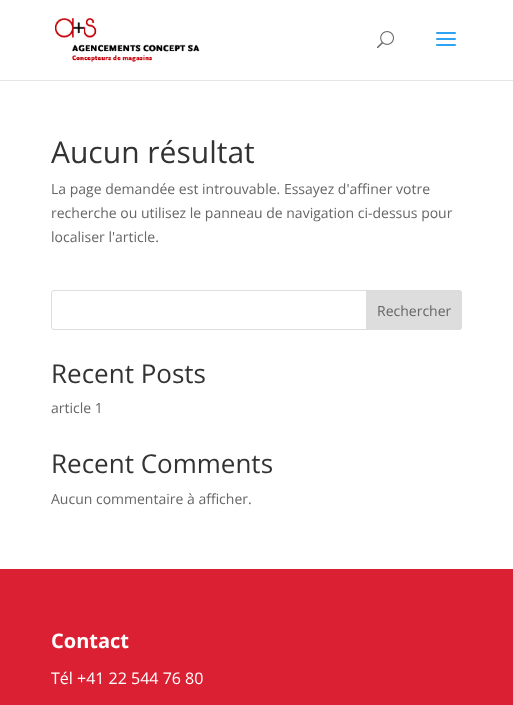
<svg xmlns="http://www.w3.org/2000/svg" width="513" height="705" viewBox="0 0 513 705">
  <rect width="100%" height="100%" fill="rgb(255,255,255)"/>
  <rect x="0" y="80" width="513" height="1" fill="rgb(230,230,230)"/>
  <image x="55" y="18" width="145" height="44" href="pic1.png"/>
  <image x="377" y="31" width="17" height="18" href="pic2.png"/>
  <image x="436" y="32" width="20" height="14" href="pic3.png"/>
  <text x="51" y="163" font-family="Open Sans" font-size="30" fill="rgb(51,51,51)">Aucun résultat</text>
  <g font-family="Open Sans" font-size="14" fill="rgb(102,102,102)">
    <text>
      <tspan x="51" y="194">La page demandée est introuvable. Essayez d'affiner votre</tspan>
      <tspan x="51" y="218">recherche ou utilisez le panneau de navigation ci-dessus pour</tspan>
      <tspan x="51" y="242">localiser l'article.</tspan>
    </text>
  </g>
  <rect x="51.5" y="290.5" width="410" height="39" rx="2.5" fill="none" stroke="rgb(221,221,221)"/>
  <path d="M366.5 290.5H459C460.5 290.5 461.5 291.5 461.5 293V327C461.5 328.5 460.5 329.5 459 329.5H366.5Z" fill="rgb(221,221,221)" stroke="rgb(221,221,221)"/>
  <text x="377" y="316" font-family="Open Sans" font-size="14" fill="rgb(102,102,102)">Rechercher</text>
  <text x="51" y="383" font-family="Open Sans" font-size="26" fill="rgb(51,51,51)">Recent Posts</text>
  <text x="51" y="413" font-family="Open Sans" font-size="14" fill="rgb(102,102,102)">article 1</text>
  <text x="51" y="473" font-family="Open Sans" font-size="26" fill="rgb(51,51,51)">Recent Comments</text>
  <text x="51" y="504" font-family="Open Sans" font-size="14" fill="rgb(102,102,102)">Aucun commentaire à afficher.</text>
  <rect x="0" y="569" width="513" height="136" fill="rgb(218,32,50)"/>
  <text x="51" y="648" font-family="Open Sans" font-size="20" font-weight="bold" fill="rgb(255,255,255)">Contact</text>
  <text x="51" y="684" font-family="Open Sans" font-size="16" fill="rgb(255,255,255)">Tél +41 22 544 76 80</text>
</svg>
